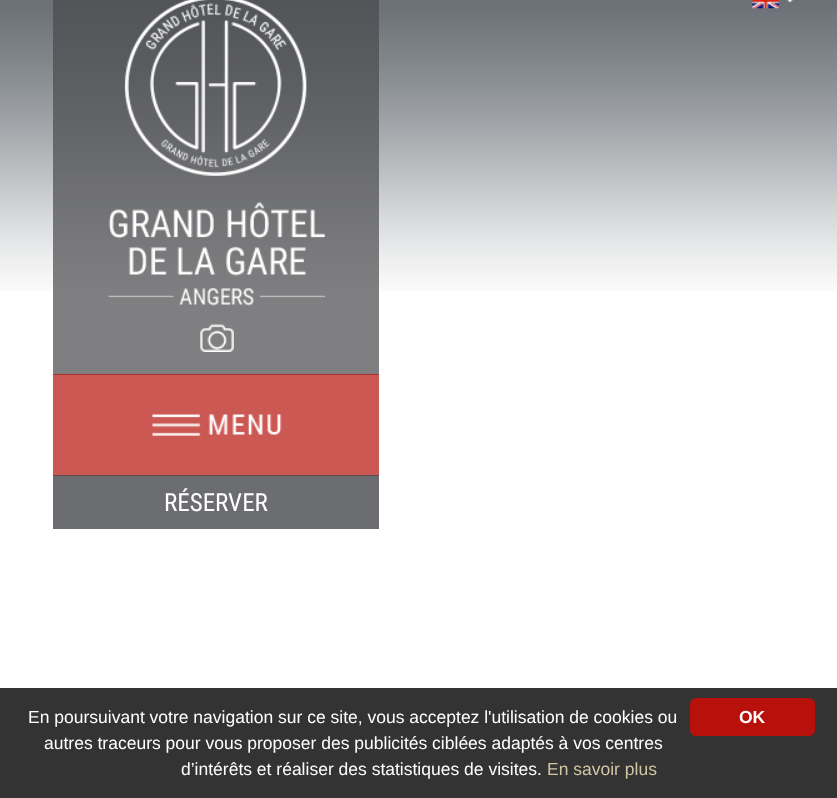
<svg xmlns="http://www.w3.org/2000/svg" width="837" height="798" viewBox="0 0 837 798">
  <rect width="100%" height="100%" fill="rgb(255,255,255)"/>
  <image x="0" y="0" width="837" height="291" href="pic1.png"/>
  <image x="787" y="0" width="6" height="3" href="pic2.png"/>
  <image x="752" y="0" width="27" height="9" href="pic3.png"/>
  <rect x="53" y="0" width="326" height="375" fill="rgba(72,73,76,0.7)"/>
  <image x="108" y="0" width="217" height="306" href="pic4.png"/>
  <image x="200" y="324" width="34" height="28" href="pic5.png"/>
  <rect x="53" y="374" width="326" height="102" fill="rgba(183,17,11,0.7)"/>
  <image x="152" y="414" width="130" height="22" href="pic6.png"/>
  <rect x="53" y="475" width="326" height="54" fill="rgba(71,72,76,0.8)"/>
  <text x="164" y="511" font-family="Roboto Condensed" font-size="25" fill="rgb(255,255,255)">RÉSERVER</text>
  <rect x="0" y="688" width="837" height="110" fill="rgb(51,51,51)"/>
  <g font-family="Liberation Sans" font-size="17.5" fill="rgb(255,255,255)">
    <text x="28" y="723">En poursuivant votre navigation sur ce site, vous acceptez l'utilisation de cookies ou</text>
    <text x="44" y="749">autres traceurs pour vous proposer des publicités ciblées adaptés à vos centres</text>
    <text x="181" y="775">d’intérêts et réaliser des statistiques de visites.</text>
  </g>
  <text x="547" y="775" font-family="Liberation Sans" font-size="17.5" fill="rgb(210,197,163)">En savoir plus</text>
  <rect x="690" y="698" width="125" height="38" rx="6" fill="rgb(184,16,11)"/>
  <text x="739" y="723" font-family="Liberation Sans" font-size="17.5" font-weight="bold" fill="rgb(255,255,255)">OK</text>
</svg>
